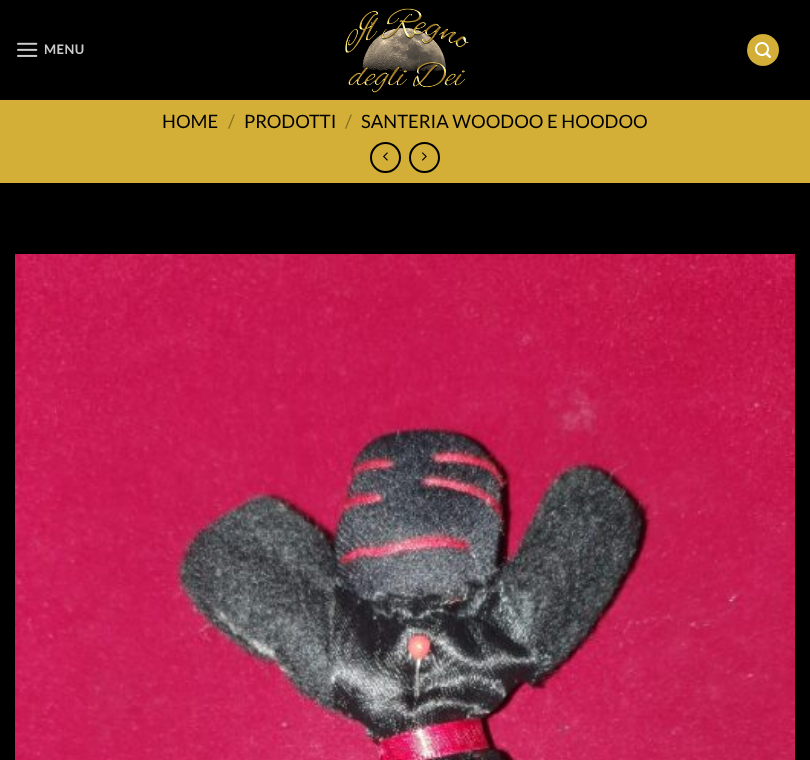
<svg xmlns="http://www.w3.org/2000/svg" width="810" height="760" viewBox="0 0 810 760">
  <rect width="100%" height="100%" fill="rgb(0,0,0)"/>
  <image x="17" y="42" width="21" height="15" href="pic1.png"/>
  <text x="44" y="54" font-family="Lato" font-size="13" font-weight="bold" letter-spacing="0.5" fill="rgb(204,204,204)">MENU</text>
  <image x="345" y="8" width="124" height="85" href="pic2.png"/>
  <circle cx="763" cy="50" r="16" fill="rgb(212,175,55)"/>
  <rect x="747.5" y="34.5" width="31" height="31" fill="none" stroke="rgba(0,0,0,0.05)"/>
  <image x="755" y="42" width="16" height="16" href="pic3.png"/>
  <rect x="0" y="100" width="810" height="83" fill="rgb(212,175,55)"/>
  <text x="162" y="128" font-family="Lato" font-size="18.4" fill="rgb(0,0,0)">HOME</text>
  <text x="228" y="128" font-family="Lato" font-size="18.4" fill="rgb(138,114,36)">/</text>
  <text x="244" y="128" font-family="Lato" font-size="18.4" fill="rgb(0,0,0)">PRODOTTI</text>
  <text x="345" y="128" font-family="Lato" font-size="18.4" fill="rgb(138,114,36)">/</text>
  <text x="361" y="128" font-family="Lato" font-size="18.4" fill="rgb(0,0,0)">SANTERIA WOODOO E HOODOO</text>
  <circle cx="385.5" cy="157.5" r="14.5" fill="none" stroke="rgb(0,0,0)" stroke-width="2"/>
  <image x="383" y="152" width="5" height="9" href="pic4.png"/>
  <circle cx="424.5" cy="157.5" r="14.5" fill="none" stroke="rgb(0,0,0)" stroke-width="2"/>
  <image x="422" y="152" width="5" height="9" href="pic5.png"/>
  <image x="15" y="254" width="780" height="506" href="pic6.png"/>
</svg>
